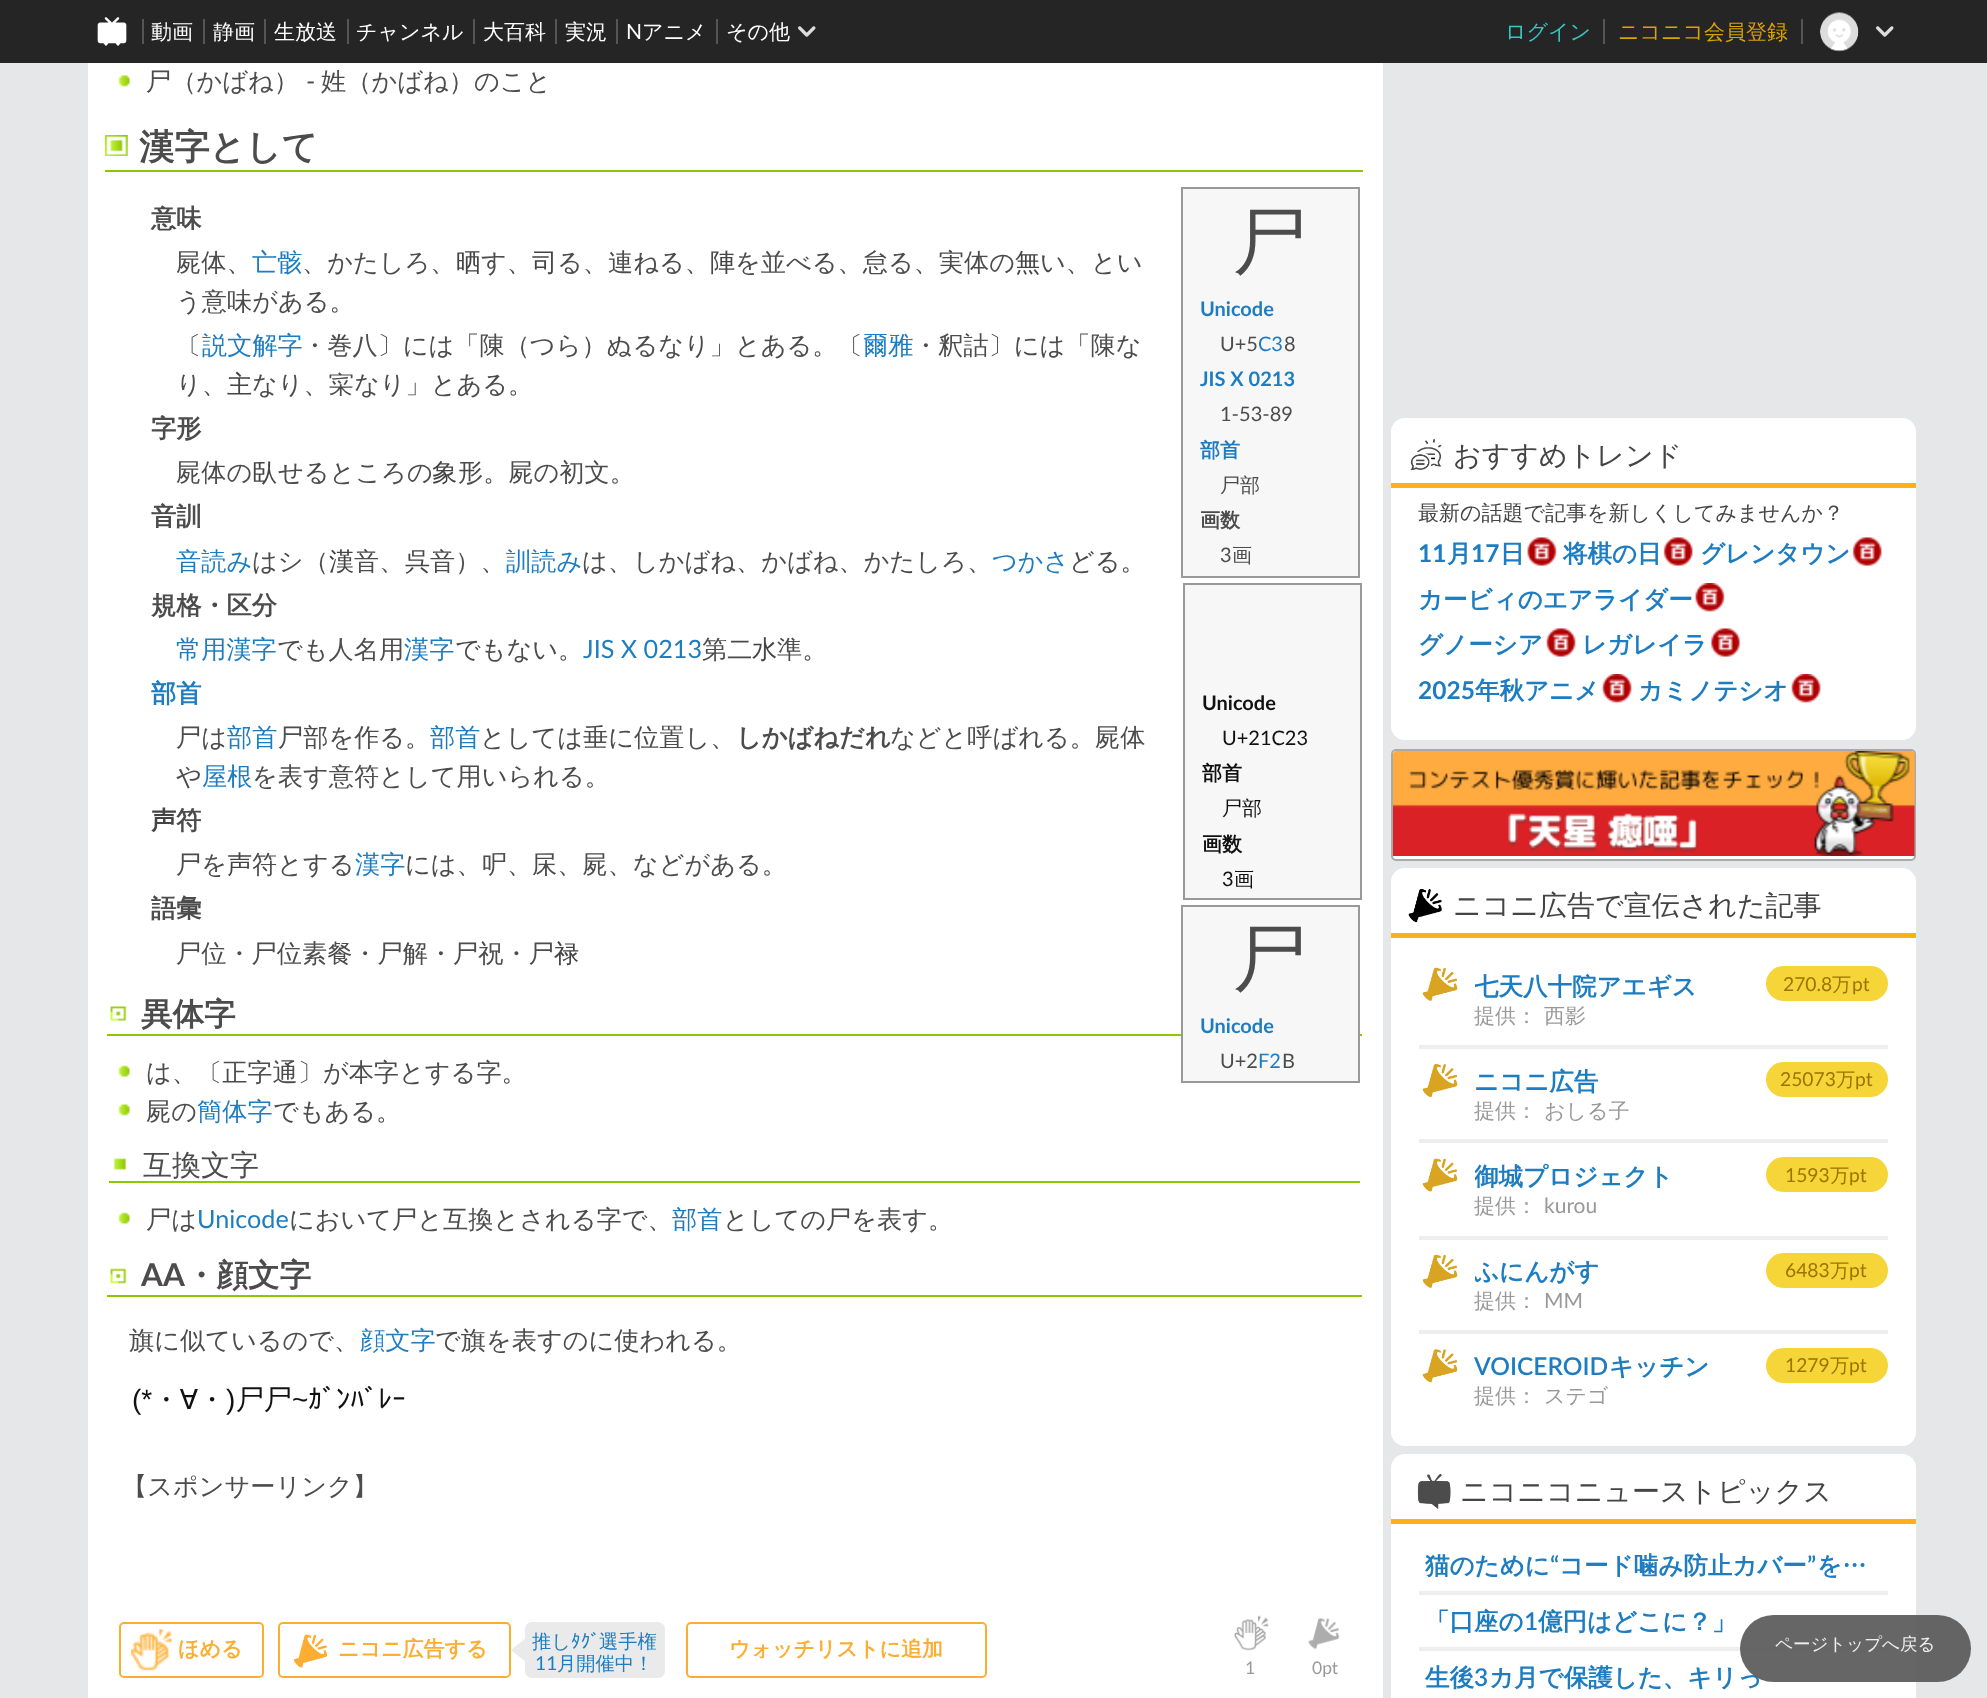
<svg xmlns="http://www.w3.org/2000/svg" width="1987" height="1698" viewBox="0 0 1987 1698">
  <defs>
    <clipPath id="clip1"><rect x="1475" y="966" width="263" height="32"/></clipPath>
    <clipPath id="clip2"><rect x="1475" y="1157" width="263" height="31"/></clipPath>
    <clipPath id="clip3"><rect x="1475" y="1253" width="263" height="32"/></clipPath>
  </defs>
  <rect width="100%" height="100%" fill="rgb(230,231,232)"/>
  <rect x="0" y="0" width="1987" height="63" fill="rgb(37,37,37)"/>
  <image x="97" y="17" width="30" height="29" href="pic1.png"/>
  <rect x="142" y="19" width="2" height="25" fill="rgb(85,85,85)"/>
  <text x="151" y="39" font-family="WenQuanYi Zen Hei" font-size="21" font-weight="500" fill="rgb(255,255,255)">動画</text>
  <rect x="203" y="19" width="2" height="25" fill="rgb(85,85,85)"/>
  <text x="213" y="39" font-family="WenQuanYi Zen Hei" font-size="21" font-weight="500" fill="rgb(255,255,255)">静画</text>
  <rect x="264" y="19" width="2" height="25" fill="rgb(85,85,85)"/>
  <text x="274" y="39" font-family="WenQuanYi Zen Hei" font-size="21" font-weight="500" fill="rgb(255,255,255)">生放送</text>
  <rect x="347" y="19" width="2" height="25" fill="rgb(85,85,85)"/>
  <text x="356" y="39" font-family="WenQuanYi Zen Hei" font-size="21" font-weight="500" fill="rgb(255,255,255)">チャンネル</text>
  <rect x="473" y="19" width="2" height="25" fill="rgb(85,85,85)"/>
  <text x="483" y="39" font-family="WenQuanYi Zen Hei" font-size="21" font-weight="500" fill="rgb(255,255,255)">大百科</text>
  <rect x="555" y="19" width="2" height="25" fill="rgb(85,85,85)"/>
  <text x="565" y="39" font-family="WenQuanYi Zen Hei" font-size="21" font-weight="500" fill="rgb(255,255,255)">実況</text>
  <rect x="616" y="19" width="2" height="25" fill="rgb(85,85,85)"/>
  <text x="626" y="39" font-family="Lato" font-size="21" fill="rgb(255,255,255)">N</text>
  <text x="642" y="39" font-family="WenQuanYi Zen Hei" font-size="21" font-weight="500" fill="rgb(255,255,255)">アニメ</text>
  <rect x="716" y="19" width="2" height="25" fill="rgb(85,85,85)"/>
  <text x="726" y="39" font-family="WenQuanYi Zen Hei" font-size="21" font-weight="500" fill="rgb(255,255,255)">その他</text>
  <image x="798" y="26" width="18" height="11" href="pic2.png"/>
  <text x="1505" y="39" font-family="WenQuanYi Zen Hei" font-size="21" font-weight="500" fill="rgb(57,196,193)">ログイン</text>
  <rect x="1603" y="19" width="2" height="25" fill="rgb(85,85,85)"/>
  <text x="1618" y="39" font-family="WenQuanYi Zen Hei" font-size="21" font-weight="500" fill="rgb(217,163,0)">ニコニコ会員登録</text>
  <rect x="1801" y="19" width="2" height="25" fill="rgb(85,85,85)"/>
  <image x="1820" y="12" width="39" height="40" href="pic3.png"/>
  <image x="1876" y="26" width="18" height="11" href="pic2.png"/>
  <rect x="88" y="63" width="1295" height="1635" fill="rgb(255,255,255)"/>
  <image x="118" y="75" width="12" height="12" href="pic4.png"/>
  <text x="146" y="90" font-family="WenQuanYi Zen Hei" font-size="25.2" font-weight="500" fill="rgb(76,76,76)">尸（かばね）</text>
  <text x="306" y="90" font-family="Lato" font-size="25.2" fill="rgb(76,76,76)">-</text>
  <text x="321" y="90" font-family="WenQuanYi Zen Hei" font-size="25.2" font-weight="500" fill="rgb(76,76,76)">姓（かばね）のこと</text>
  <image x="105" y="135" width="23" height="21" href="pic5.png"/>
  <rect x="105" y="170" width="1258" height="2" fill="rgb(140,199,0)"/>
  <text x="139" y="159" font-family="WenQuanYi Zen Hei" font-size="35.25" font-weight="bold" fill="rgb(76,76,76)">漢字として</text>
  <text x="151" y="227" font-family="WenQuanYi Zen Hei" font-size="25.2" font-weight="bold" fill="rgb(76,76,76)">意味</text>
  <text x="176" y="271" font-family="WenQuanYi Zen Hei" font-size="25.2" font-weight="500" fill="rgb(76,76,76)">屍体、</text>
  <text x="252" y="271" font-family="WenQuanYi Zen Hei" font-size="25.2" font-weight="500" fill="rgb(30,125,192)">亡骸</text>
  <text x="302" y="271" font-family="WenQuanYi Zen Hei" font-size="25.2" font-weight="500" fill="rgb(76,76,76)">、かたしろ、</text>
  <text x="456" y="271" font-family="WenQuanYi Zen Hei" font-size="25.2" font-weight="500" fill="rgb(68,68,68)">晒</text>
  <text x="481" y="271" font-family="WenQuanYi Zen Hei" font-size="25.2" font-weight="500" fill="rgb(76,76,76)">す、</text>
  <text x="532" y="271" font-family="WenQuanYi Zen Hei" font-size="25.2" font-weight="500" fill="rgb(68,68,68)">司</text>
  <text x="557" y="271" font-family="WenQuanYi Zen Hei" font-size="25.2" font-weight="500" fill="rgb(76,76,76)">る、連ねる、</text>
  <text x="710" y="271" font-family="WenQuanYi Zen Hei" font-size="25.2" font-weight="500" fill="rgb(68,68,68)">陣</text>
  <text x="735" y="271" font-family="WenQuanYi Zen Hei" font-size="25.2" font-weight="500" fill="rgb(76,76,76)">を並べる、怠る、実体の</text>
  <text x="1015" y="271" font-family="WenQuanYi Zen Hei" font-size="25.2" font-weight="500" fill="rgb(68,68,68)">無</text>
  <g font-family="WenQuanYi Zen Hei" font-size="25.2" font-weight="500" fill="rgb(76,76,76)">
    <text x="1040" y="271">い、とい</text>
    <text>
      <tspan x="176" y="310">う意味がある。</tspan>
      <tspan x="176" y="354">〔</tspan>
    </text>
  </g>
  <text x="202" y="354" font-family="WenQuanYi Zen Hei" font-size="25.2" font-weight="500" fill="rgb(30,125,192)">説文解字</text>
  <text x="302" y="354" font-family="WenQuanYi Zen Hei" font-size="25.2" font-weight="500" fill="rgb(76,76,76)">・巻八〕には「陳（つら）ぬるなり」とある。〔</text>
  <text x="863" y="354" font-family="WenQuanYi Zen Hei" font-size="25.2" font-weight="500" fill="rgb(30,125,192)">爾雅</text>
  <g font-family="WenQuanYi Zen Hei" font-size="25.2" font-weight="500" fill="rgb(76,76,76)">
    <text x="913" y="354">・釈詁〕には「陳な</text>
    <text x="176" y="393">り、</text>
  </g>
  <text x="227" y="393" font-family="WenQuanYi Zen Hei" font-size="25.2" font-weight="500" fill="rgb(68,68,68)">主</text>
  <text x="252" y="393" font-family="WenQuanYi Zen Hei" font-size="25.2" font-weight="500" fill="rgb(76,76,76)">なり、寀なり」とある。</text>
  <text x="151" y="437" font-family="WenQuanYi Zen Hei" font-size="25.2" font-weight="bold" fill="rgb(76,76,76)">字形</text>
  <text x="176" y="481" font-family="WenQuanYi Zen Hei" font-size="25.2" font-weight="500" fill="rgb(76,76,76)">屍体の</text>
  <text x="252" y="481" font-family="WenQuanYi Zen Hei" font-size="25.2" font-weight="500" fill="rgb(68,68,68)">臥</text>
  <text x="278" y="481" font-family="WenQuanYi Zen Hei" font-size="25.2" font-weight="500" fill="rgb(76,76,76)">せるところの</text>
  <text x="432" y="481" font-family="WenQuanYi Zen Hei" font-size="25.2" font-weight="500" fill="rgb(68,68,68)">象</text>
  <text x="458" y="481" font-family="WenQuanYi Zen Hei" font-size="25.2" font-weight="500" fill="rgb(76,76,76)">形。屍の初文。</text>
  <text x="151" y="525" font-family="WenQuanYi Zen Hei" font-size="25.2" font-weight="bold" fill="rgb(76,76,76)">音訓</text>
  <text x="176" y="570" font-family="WenQuanYi Zen Hei" font-size="25.2" font-weight="500" fill="rgb(30,125,192)">音読み</text>
  <text x="252" y="570" font-family="WenQuanYi Zen Hei" font-size="25.2" font-weight="500" fill="rgb(76,76,76)">はシ（</text>
  <text x="329" y="570" font-family="WenQuanYi Zen Hei" font-size="25.2" font-weight="500" fill="rgb(68,68,68)">漢</text>
  <text x="354" y="570" font-family="WenQuanYi Zen Hei" font-size="25.2" font-weight="500" fill="rgb(76,76,76)">音、</text>
  <text x="405" y="570" font-family="WenQuanYi Zen Hei" font-size="25.2" font-weight="500" fill="rgb(68,68,68)">呉</text>
  <text x="430" y="570" font-family="WenQuanYi Zen Hei" font-size="25.2" font-weight="500" fill="rgb(76,76,76)">音）、</text>
  <text x="506" y="570" font-family="WenQuanYi Zen Hei" font-size="25.2" font-weight="500" fill="rgb(30,125,192)">訓読み</text>
  <text x="582" y="570" font-family="WenQuanYi Zen Hei" font-size="25.2" font-weight="500" fill="rgb(76,76,76)">は、しかばね、かばね、かたしろ、</text>
  <text x="992" y="570" font-family="WenQuanYi Zen Hei" font-size="25.2" font-weight="500" fill="rgb(30,125,192)">つかさ</text>
  <text x="1069" y="570" font-family="WenQuanYi Zen Hei" font-size="25.2" font-weight="500" fill="rgb(76,76,76)">どる。</text>
  <text x="151" y="614" font-family="WenQuanYi Zen Hei" font-size="25.2" font-weight="bold" fill="rgb(76,76,76)">規格・区分</text>
  <text x="176" y="658" font-family="WenQuanYi Zen Hei" font-size="25.2" font-weight="500" fill="rgb(30,125,192)">常用漢字</text>
  <text x="277" y="658" font-family="WenQuanYi Zen Hei" font-size="25.2" font-weight="500" fill="rgb(76,76,76)">でも人名用</text>
  <text x="404" y="658" font-family="WenQuanYi Zen Hei" font-size="25.2" font-weight="500" fill="rgb(30,125,192)">漢字</text>
  <text x="455" y="658" font-family="WenQuanYi Zen Hei" font-size="25.2" font-weight="500" fill="rgb(76,76,76)">でもない。</text>
  <text x="583" y="658" font-family="Lato" font-size="25.2" fill="rgb(30,125,192)">JIS X 0213</text>
  <text x="702" y="658" font-family="WenQuanYi Zen Hei" font-size="25.2" font-weight="500" fill="rgb(76,76,76)">第二</text>
  <text x="752" y="658" font-family="WenQuanYi Zen Hei" font-size="25.2" font-weight="500" fill="rgb(68,68,68)">水</text>
  <text x="777" y="658" font-family="WenQuanYi Zen Hei" font-size="25.2" font-weight="500" fill="rgb(76,76,76)">準。</text>
  <text x="151" y="702" font-family="WenQuanYi Zen Hei" font-size="25.2" font-weight="bold" fill="rgb(30,125,192)">部首</text>
  <text x="176" y="746" font-family="WenQuanYi Zen Hei" font-size="25.2" font-weight="500" fill="rgb(76,76,76)">尸は</text>
  <text x="227" y="746" font-family="WenQuanYi Zen Hei" font-size="25.2" font-weight="500" fill="rgb(30,125,192)">部首</text>
  <text x="278" y="746" font-family="WenQuanYi Zen Hei" font-size="25.2" font-weight="500" fill="rgb(76,76,76)">尸部を作る。</text>
  <text x="430" y="746" font-family="WenQuanYi Zen Hei" font-size="25.2" font-weight="500" fill="rgb(30,125,192)">部首</text>
  <text x="480" y="746" font-family="WenQuanYi Zen Hei" font-size="25.2" font-weight="500" fill="rgb(76,76,76)">としては垂に位置し、</text>
  <text x="736" y="746" font-family="WenQuanYi Zen Hei" font-size="25.2" font-weight="bold" fill="rgb(76,76,76)">しかばねだれ</text>
  <g font-family="WenQuanYi Zen Hei" font-size="25.2" font-weight="500" fill="rgb(76,76,76)">
    <text x="890" y="746">などと呼ばれる。屍体</text>
    <text x="176" y="785">や</text>
  </g>
  <text x="202" y="785" font-family="WenQuanYi Zen Hei" font-size="25.2" font-weight="500" fill="rgb(30,125,192)">屋根</text>
  <text x="252" y="785" font-family="WenQuanYi Zen Hei" font-size="25.2" font-weight="500" fill="rgb(76,76,76)">を表す意符として用いられる。</text>
  <text x="151" y="829" font-family="WenQuanYi Zen Hei" font-size="25.2" font-weight="bold" fill="rgb(68,68,68)">声</text>
  <text x="176" y="829" font-family="WenQuanYi Zen Hei" font-size="25.2" font-weight="bold" fill="rgb(76,76,76)">符</text>
  <text x="176" y="873" font-family="WenQuanYi Zen Hei" font-size="25.2" font-weight="500" fill="rgb(76,76,76)">尸を</text>
  <text x="227" y="873" font-family="WenQuanYi Zen Hei" font-size="25.2" font-weight="500" fill="rgb(68,68,68)">声</text>
  <text x="252" y="873" font-family="WenQuanYi Zen Hei" font-size="25.2" font-weight="500" fill="rgb(76,76,76)">符とする</text>
  <text x="355" y="873" font-family="WenQuanYi Zen Hei" font-size="25.2" font-weight="500" fill="rgb(30,125,192)">漢字</text>
  <text x="405" y="873" font-family="WenQuanYi Zen Hei" font-size="25.2" font-weight="500" fill="rgb(76,76,76)">には、㕧、杘、屍、などがある。</text>
  <text x="151" y="917" font-family="WenQuanYi Zen Hei" font-size="25.2" font-weight="bold" fill="rgb(76,76,76)">語彙</text>
  <text x="176" y="962" font-family="WenQuanYi Zen Hei" font-size="25.2" font-weight="500" fill="rgb(76,76,76)">尸位・尸位素餐・尸解・尸祝・尸</text>
  <text x="554" y="962" font-family="WenQuanYi Zen Hei" font-size="25.2" font-weight="500" fill="rgb(68,68,68)">禄</text>
  <rect x="1182" y="188" width="177" height="389" fill="rgb(247,247,247)" stroke="rgb(153,153,153)" stroke-width="2"/>
  <text x="1233" y="267" font-family="WenQuanYi Zen Hei" font-size="74" font-weight="500" fill="rgb(76,76,76)">尸</text>
  <text x="1200" y="316" font-family="Lato" font-size="20" font-weight="bold" fill="rgb(30,125,192)">Unicode</text>
  <text x="1220" y="351" font-family="Lato" font-size="20" fill="rgb(76,76,76)">U+5</text>
  <text x="1258" y="351" font-family="Lato" font-size="20" fill="rgb(30,125,192)">C3</text>
  <text x="1284" y="351" font-family="Lato" font-size="20" fill="rgb(76,76,76)">8</text>
  <text x="1200" y="386" font-family="Lato" font-size="20" font-weight="bold" fill="rgb(30,125,192)">JIS X 0213</text>
  <text x="1220" y="421" font-family="Lato" font-size="20" fill="rgb(76,76,76)">1-53-89</text>
  <text x="1200" y="457" font-family="WenQuanYi Zen Hei" font-size="20" font-weight="bold" fill="rgb(30,125,192)">部首</text>
  <text x="1220" y="492" font-family="WenQuanYi Zen Hei" font-size="20" font-weight="500" fill="rgb(76,76,76)">尸部</text>
  <text x="1200" y="527" font-family="WenQuanYi Zen Hei" font-size="20" font-weight="bold" fill="rgb(76,76,76)">画数</text>
  <text x="1220" y="562" font-family="Lato" font-size="20" fill="rgb(76,76,76)">3</text>
  <text x="1232" y="562" font-family="WenQuanYi Zen Hei" font-size="20" font-weight="500" fill="rgb(76,76,76)">画</text>
  <rect x="1184" y="584" width="177" height="315" fill="rgb(247,247,247)" stroke="rgb(153,153,153)" stroke-width="2"/>
  <text x="1202" y="710" font-family="Lato" font-size="20" font-weight="bold" fill="rgb(17,17,17)">Unicode</text>
  <text x="1222" y="745" font-family="Lato" font-size="20" fill="rgb(17,17,17)">U+21C23</text>
  <text x="1202" y="780" font-family="WenQuanYi Zen Hei" font-size="20" font-weight="bold" fill="rgb(17,17,17)">部首</text>
  <text x="1222" y="815" font-family="WenQuanYi Zen Hei" font-size="20" font-weight="500" fill="rgb(17,17,17)">尸部</text>
  <text x="1202" y="851" font-family="WenQuanYi Zen Hei" font-size="20" font-weight="bold" fill="rgb(17,17,17)">画数</text>
  <text x="1222" y="886" font-family="Lato" font-size="20" fill="rgb(17,17,17)">3</text>
  <text x="1234" y="886" font-family="WenQuanYi Zen Hei" font-size="20" font-weight="500" fill="rgb(17,17,17)">画</text>
  <rect x="107" y="1034" width="1255" height="2" fill="rgb(140,199,0)"/>
  <rect x="1182" y="906" width="177" height="176" fill="rgb(247,247,247)" stroke="rgb(153,153,153)" stroke-width="2"/>
  <text x="1233" y="984" font-family="WenQuanYi Zen Hei" font-size="74" font-weight="500" fill="rgb(76,76,76)">⼫</text>
  <text x="1200" y="1033" font-family="Lato" font-size="20" font-weight="bold" fill="rgb(30,125,192)">Unicode</text>
  <text x="1220" y="1068" font-family="Lato" font-size="20" fill="rgb(76,76,76)">U+2</text>
  <text x="1258" y="1068" font-family="Lato" font-size="20" fill="rgb(30,125,192)">F2</text>
  <text x="1282" y="1068" font-family="Lato" font-size="20" fill="rgb(76,76,76)">B</text>
  <image x="110" y="1006" width="17" height="15" href="pic6.png"/>
  <text x="141" y="1025" font-family="WenQuanYi Zen Hei" font-size="31.5" font-weight="bold" fill="rgb(76,76,76)">異体字</text>
  <image x="118" y="1065" width="12" height="12" href="pic7.png"/>
  <text x="146" y="1081" font-family="WenQuanYi Zen Hei" font-size="25.2" font-weight="500" fill="rgb(76,76,76)">は、〔正字通〕が本字とする字。</text>
  <image x="118" y="1104" width="12" height="12" href="pic4.png"/>
  <text x="146" y="1120" font-family="WenQuanYi Zen Hei" font-size="25.2" font-weight="500" fill="rgb(76,76,76)">屍の</text>
  <text x="197" y="1120" font-family="WenQuanYi Zen Hei" font-size="25.2" font-weight="500" fill="rgb(30,125,192)">簡体字</text>
  <text x="273" y="1120" font-family="WenQuanYi Zen Hei" font-size="25.2" font-weight="500" fill="rgb(76,76,76)">でもある。</text>
  <image x="113" y="1158" width="14" height="12" href="pic8.png"/>
  <rect x="109" y="1181" width="1251" height="2" fill="rgb(140,199,0)"/>
  <text x="143" y="1175" font-family="WenQuanYi Zen Hei" font-size="29" font-weight="500" fill="rgb(76,76,76)">互換文字</text>
  <image x="118" y="1212" width="12" height="12" href="pic7.png"/>
  <text x="146" y="1228" font-family="WenQuanYi Zen Hei" font-size="25.2" font-weight="500" fill="rgb(76,76,76)">⼫は</text>
  <text x="197" y="1228" font-family="Lato" font-size="25.2" fill="rgb(30,125,192)">Unicode</text>
  <text x="289" y="1228" font-family="WenQuanYi Zen Hei" font-size="25.2" font-weight="500" fill="rgb(76,76,76)">において尸と互換とされる字で、</text>
  <text x="672" y="1228" font-family="WenQuanYi Zen Hei" font-size="25.2" font-weight="500" fill="rgb(30,125,192)">部首</text>
  <text x="723" y="1228" font-family="WenQuanYi Zen Hei" font-size="25.2" font-weight="500" fill="rgb(76,76,76)">としての尸を表す。</text>
  <image x="110" y="1268" width="17" height="16" href="pic9.png"/>
  <rect x="107" y="1295" width="1255" height="2" fill="rgb(140,199,0)"/>
  <text x="141" y="1286" font-family="Lato" font-size="31.5" font-weight="bold" fill="rgb(76,76,76)">AA</text>
  <text x="185" y="1286" font-family="WenQuanYi Zen Hei" font-size="31.5" font-weight="bold" fill="rgb(76,76,76)">・顔文字</text>
  <text x="129" y="1349" font-family="WenQuanYi Zen Hei" font-size="25.2" font-weight="500" fill="rgb(76,76,76)">旗に似ているので、</text>
  <text x="360" y="1349" font-family="WenQuanYi Zen Hei" font-size="25.2" font-weight="500" fill="rgb(30,125,192)">顔文字</text>
  <text x="435" y="1349" font-family="WenQuanYi Zen Hei" font-size="25.2" font-weight="500" fill="rgb(76,76,76)">で旗を表すのに使われる。</text>
  <text x="132" y="1409" font-family="Liberation Sans" font-size="28" fill="rgb(17,17,17)">(*</text>
  <text x="152" y="1409" font-family="WenQuanYi Zen Hei" font-size="28" font-weight="500" fill="rgb(17,17,17)">・∀・</text>
  <text x="226" y="1409" font-family="Liberation Sans" font-size="28" fill="rgb(17,17,17)">)</text>
  <text x="236" y="1409" font-family="WenQuanYi Zen Hei" font-size="28" font-weight="500" fill="rgb(17,17,17)">尸尸</text>
  <text x="292" y="1409" font-family="Liberation Sans" font-size="28" fill="rgb(17,17,17)">~</text>
  <text x="308" y="1409" font-family="IPAPGothic" font-size="28" fill="rgb(17,17,17)">ｶﾞﾝﾊﾞﾚｰ</text>
  <text x="122" y="1495" font-family="WenQuanYi Zen Hei" font-size="25.2" font-weight="500" fill="rgb(76,76,76)">【スポンサーリンク】</text>
  <rect x="120" y="1623" width="143" height="54" rx="4" fill="none" stroke="rgb(253,174,50)" stroke-width="2"/>
  <image x="131" y="1629" width="41" height="42" href="pic10.png"/>
  <text x="178" y="1656" font-family="WenQuanYi Zen Hei" font-size="21" font-weight="bold" fill="rgb(253,174,50)">ほめる</text>
  <rect x="279" y="1623" width="231" height="54" rx="4" fill="none" stroke="rgb(253,174,50)" stroke-width="2"/>
  <image x="293" y="1634" width="34" height="34" href="pic11.png"/>
  <text x="338" y="1656" font-family="WenQuanYi Zen Hei" font-size="21" font-weight="bold" fill="rgb(253,174,50)">ニコニ広告する</text>
  <rect x="525" y="1622" width="140" height="56" rx="7" fill="rgb(234,234,234)"/>
  <path d="M528.5 1636V1664L511 1650Z" fill="rgb(234,234,234)"/>
  <text x="532" y="1648" font-family="WenQuanYi Zen Hei" font-size="19.25" font-weight="500" fill="rgb(30,125,192)">推し</text>
  <text x="571" y="1648" font-family="IPAPGothic" font-size="19.25" fill="rgb(30,125,192)">ﾀｸﾞ</text>
  <text x="599" y="1648" font-family="WenQuanYi Zen Hei" font-size="19.25" font-weight="500" fill="rgb(30,125,192)">選手権</text>
  <text x="535" y="1670" font-family="Lato" font-size="19.25" fill="rgb(30,125,192)">11</text>
  <text x="557" y="1670" font-family="WenQuanYi Zen Hei" font-size="19.25" font-weight="500" fill="rgb(30,125,192)">月開催中！</text>
  <rect x="687" y="1623" width="299" height="54" rx="4" fill="none" stroke="rgb(253,174,50)" stroke-width="2"/>
  <text x="729" y="1656" font-family="WenQuanYi Zen Hei" font-size="21" font-weight="bold" fill="rgb(253,174,50)">ウォッチリストに追加</text>
  <image x="1234" y="1615" width="35" height="36" href="pic12.png"/>
  <text x="1245" y="1674" font-family="Lato" font-size="17.5" fill="rgb(153,153,153)">1</text>
  <image x="1308" y="1617" width="32" height="33" href="pic13.png"/>
  <text x="1312" y="1674" font-family="Lato" font-size="17.5" fill="rgb(153,153,153)">0pt</text>
  <rect x="1391" y="418" width="525" height="322" rx="14" fill="rgb(255,255,255)"/>
  <rect x="1391" y="483" width="525" height="5" fill="rgb(255,175,25)"/>
  <image x="1410" y="439" width="32" height="32" href="pic14.png"/>
  <text x="1453" y="465" font-family="WenQuanYi Zen Hei" font-size="28" font-weight="500" fill="rgb(68,68,68)">おすすめトレンド</text>
  <text x="1418" y="520" font-family="WenQuanYi Zen Hei" font-size="21" font-weight="500" fill="rgb(68,68,68)">最新の話題で記事を新しくしてみませんか？</text>
  <text x="1418" y="562" font-family="Lato" font-size="24.5" font-weight="bold" fill="rgb(30,125,192)">11</text>
  <text x="1447" y="562" font-family="WenQuanYi Zen Hei" font-size="24.5" font-weight="bold" fill="rgb(30,125,192)">月</text>
  <text x="1471" y="562" font-family="Lato" font-size="24.5" font-weight="bold" fill="rgb(30,125,192)">17</text>
  <text x="1500" y="562" font-family="WenQuanYi Zen Hei" font-size="24.5" font-weight="bold" fill="rgb(30,125,192)">日</text>
  <image x="1526" y="537" width="31" height="30" href="pic15.png"/>
  <text x="1563" y="562" font-family="WenQuanYi Zen Hei" font-size="24.5" font-weight="bold" fill="rgb(30,125,192)">将棋の日</text>
  <image x="1663" y="537" width="31" height="30" href="pic16.png"/>
  <text x="1700" y="562" font-family="WenQuanYi Zen Hei" font-size="24.5" font-weight="bold" fill="rgb(30,125,192)">グレンタウン</text>
  <image x="1852" y="537" width="31" height="30" href="pic17.png"/>
  <text x="1418" y="608" font-family="WenQuanYi Zen Hei" font-size="24.5" font-weight="bold" fill="rgb(30,125,192)">カービィのエアライダー</text>
  <image x="1694" y="583" width="31" height="30" href="pic18.png"/>
  <text x="1418" y="653" font-family="WenQuanYi Zen Hei" font-size="24.5" font-weight="bold" fill="rgb(30,125,192)">グノーシア</text>
  <image x="1545" y="628" width="32" height="30" href="pic19.png"/>
  <text x="1582" y="653" font-family="WenQuanYi Zen Hei" font-size="24.5" font-weight="bold" fill="rgb(30,125,192)">レガレイラ</text>
  <image x="1710" y="628" width="31" height="30" href="pic20.png"/>
  <text x="1418" y="699" font-family="Lato" font-size="24.5" font-weight="bold" fill="rgb(30,125,192)">2025</text>
  <text x="1475" y="699" font-family="WenQuanYi Zen Hei" font-size="24.5" font-weight="bold" fill="rgb(30,125,192)">年秋アニメ</text>
  <image x="1601" y="674" width="32" height="30" href="pic21.png"/>
  <text x="1638" y="699" font-family="WenQuanYi Zen Hei" font-size="24.5" font-weight="bold" fill="rgb(30,125,192)">カミノテシオ</text>
  <image x="1790" y="674" width="32" height="30" href="pic22.png"/>
  <rect x="1392" y="750" width="523" height="110" rx="4" fill="rgb(255,255,255)" stroke="rgb(170,170,170)" stroke-width="2"/>
  <image x="1393" y="751" width="522" height="105" href="pic23.png"/>
  <rect x="1391" y="868" width="525" height="578" rx="14" fill="rgb(255,255,255)"/>
  <rect x="1391" y="933" width="525" height="5" fill="rgb(255,175,25)"/>
  <image x="1408" y="889" width="34" height="34" href="pic24.png"/>
  <text x="1453" y="915" font-family="WenQuanYi Zen Hei" font-size="28" font-weight="500" fill="rgb(68,68,68)">ニコニ広告で宣伝された記事</text>
  <rect x="1419" y="1045" width="469" height="4" fill="rgb(238,238,238)"/>
  <image x="1422" y="967" width="36" height="34" href="pic25.png"/>
  <g clip-path="url(#clip1)">
    <text x="1474" y="995" font-family="WenQuanYi Zen Hei" font-size="24.5" font-weight="bold" fill="rgb(30,125,192)">七天八十院アエギス</text>
  </g>
  <g font-family="WenQuanYi Zen Hei" font-size="21" font-weight="500" fill="rgb(153,153,153)">
    <text x="1474" y="1023">提供：</text>
    <text x="1544" y="1023">西影</text>
  </g>
  <rect x="1766" y="966" width="122" height="35" rx="17.5" fill="rgb(246,213,56)"/>
  <text x="1783" y="991" font-family="Lato" font-size="19.25" fill="rgb(152,118,0)">270.8</text>
  <text x="1832" y="991" font-family="WenQuanYi Zen Hei" font-size="19.25" font-weight="500" fill="rgb(152,118,0)">万</text>
  <text x="1852" y="991" font-family="Lato" font-size="19.25" fill="rgb(152,118,0)">pt</text>
  <rect x="1419" y="1139" width="469" height="4" fill="rgb(238,238,238)"/>
  <image x="1422" y="1064" width="36" height="34" href="pic26.png"/>
  <text x="1474" y="1090" font-family="WenQuanYi Zen Hei" font-size="24.5" font-weight="bold" fill="rgb(30,125,192)">ニコニ広告</text>
  <g font-family="WenQuanYi Zen Hei" font-size="21" font-weight="500" fill="rgb(153,153,153)">
    <text x="1474" y="1118">提供：</text>
    <text x="1544" y="1118">おしる子</text>
  </g>
  <rect x="1766" y="1062" width="122" height="35" rx="17.5" fill="rgb(246,213,56)"/>
  <text x="1780" y="1086" font-family="Lato" font-size="19.25" fill="rgb(152,118,0)">25073</text>
  <text x="1836" y="1086" font-family="WenQuanYi Zen Hei" font-size="19.25" font-weight="500" fill="rgb(152,118,0)">万</text>
  <text x="1855" y="1086" font-family="Lato" font-size="19.25" fill="rgb(152,118,0)">pt</text>
  <rect x="1419" y="1236" width="469" height="4" fill="rgb(238,238,238)"/>
  <image x="1422" y="1158" width="36" height="34" href="pic27.png"/>
  <g clip-path="url(#clip2)">
    <text x="1474" y="1185" font-family="WenQuanYi Zen Hei" font-size="24.5" font-weight="bold" fill="rgb(30,125,192)">御城プロジェクト</text>
  </g>
  <text x="1474" y="1213" font-family="WenQuanYi Zen Hei" font-size="21" font-weight="500" fill="rgb(153,153,153)">提供：</text>
  <text x="1544" y="1213" font-family="Lato" font-size="21" fill="rgb(153,153,153)">kurou</text>
  <rect x="1766" y="1157" width="122" height="35" rx="17.5" fill="rgb(246,213,56)"/>
  <text x="1785" y="1182" font-family="Lato" font-size="19.25" fill="rgb(152,118,0)">1593</text>
  <text x="1830" y="1182" font-family="WenQuanYi Zen Hei" font-size="19.25" font-weight="500" fill="rgb(152,118,0)">万</text>
  <text x="1849" y="1182" font-family="Lato" font-size="19.25" fill="rgb(152,118,0)">pt</text>
  <rect x="1419" y="1330" width="469" height="4" fill="rgb(238,238,238)"/>
  <image x="1422" y="1254" width="36" height="34" href="pic25.png"/>
  <g clip-path="url(#clip3)">
    <text x="1474" y="1280" font-family="WenQuanYi Zen Hei" font-size="24.5" font-weight="bold" fill="rgb(30,125,192)">ふにんがす</text>
  </g>
  <text x="1474" y="1308" font-family="WenQuanYi Zen Hei" font-size="21" font-weight="500" fill="rgb(153,153,153)">提供：</text>
  <text x="1544" y="1308" font-family="Lato" font-size="21" fill="rgb(153,153,153)">MM</text>
  <rect x="1766" y="1253" width="122" height="35" rx="17.5" fill="rgb(246,213,56)"/>
  <text x="1785" y="1277" font-family="Lato" font-size="19.25" fill="rgb(152,118,0)">6483</text>
  <text x="1830" y="1277" font-family="WenQuanYi Zen Hei" font-size="19.25" font-weight="500" fill="rgb(152,118,0)">万</text>
  <text x="1849" y="1277" font-family="Lato" font-size="19.25" fill="rgb(152,118,0)">pt</text>
  <image x="1422" y="1349" width="36" height="34" href="pic28.png"/>
  <text x="1474" y="1375" font-family="Lato" font-size="24.5" font-weight="600" fill="rgb(30,125,192)">VOICEROID</text>
  <text x="1609" y="1375" font-family="WenQuanYi Zen Hei" font-size="24.5" font-weight="bold" fill="rgb(30,125,192)">キッチン</text>
  <g font-family="WenQuanYi Zen Hei" font-size="21" font-weight="500" fill="rgb(153,153,153)">
    <text x="1474" y="1403">提供：</text>
    <text x="1544" y="1403">ステゴ</text>
  </g>
  <rect x="1766" y="1348" width="122" height="35" rx="17.5" fill="rgb(246,213,56)"/>
  <text x="1785" y="1372" font-family="Lato" font-size="19.25" fill="rgb(152,118,0)">1279</text>
  <text x="1830" y="1372" font-family="WenQuanYi Zen Hei" font-size="19.25" font-weight="500" fill="rgb(152,118,0)">万</text>
  <text x="1849" y="1372" font-family="Lato" font-size="19.25" fill="rgb(152,118,0)">pt</text>
  <rect x="1391" y="1454" width="525" height="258" rx="14" fill="rgb(255,255,255)"/>
  <rect x="1391" y="1519" width="525" height="5" fill="rgb(255,175,25)"/>
  <image x="1417" y="1474" width="34" height="35" href="pic29.png"/>
  <text x="1460" y="1501" font-family="WenQuanYi Zen Hei" font-size="28" font-weight="500" fill="rgb(68,68,68)">ニコニコニューストピックス</text>
  <rect x="1419" y="1591" width="469" height="4" fill="rgb(238,238,238)"/>
  <text x="1425" y="1574" font-family="WenQuanYi Zen Hei" font-size="24.5" font-weight="bold" fill="rgb(30,125,192)">猫のために</text>
  <text x="1550" y="1574" font-family="Lato" font-size="24.5" font-weight="600" fill="rgb(30,125,192)">“</text>
  <text x="1559" y="1574" font-family="WenQuanYi Zen Hei" font-size="24.5" font-weight="bold" fill="rgb(30,125,192)">コード噛み防止カバー</text>
  <text x="1807" y="1574" font-family="Lato" font-size="24.5" font-weight="600" fill="rgb(30,125,192)">”</text>
  <text x="1817" y="1574" font-family="WenQuanYi Zen Hei" font-size="24.5" font-weight="bold" fill="rgb(30,125,192)">を…</text>
  <rect x="1419" y="1647" width="469" height="4" fill="rgb(238,238,238)"/>
  <text x="1425" y="1630" font-family="WenQuanYi Zen Hei" font-size="24.5" font-weight="bold" fill="rgb(30,125,192)">「口座の</text>
  <text x="1524" y="1630" font-family="Lato" font-size="24.5" font-weight="600" fill="rgb(30,125,192)">1</text>
  <g font-family="WenQuanYi Zen Hei" font-size="24.5" font-weight="bold" fill="rgb(30,125,192)">
    <text x="1538" y="1630">億円はどこに？」</text>
    <text x="1425" y="1686">生後</text>
  </g>
  <text x="1474" y="1686" font-family="Lato" font-size="24.5" font-weight="600" fill="rgb(30,125,192)">3</text>
  <text x="1489" y="1686" font-family="WenQuanYi Zen Hei" font-size="24.5" font-weight="bold" fill="rgb(30,125,192)">カ月で保護した、キリっ</text>
  <rect x="1740" y="1615" width="231" height="67" rx="33.5" fill="rgba(85,85,85,0.9)"/>
  <text x="1775" y="1650" font-family="WenQuanYi Zen Hei" font-size="17.5" font-weight="500" fill="rgb(240,240,240)">ページトップへ戻る</text>
</svg>
